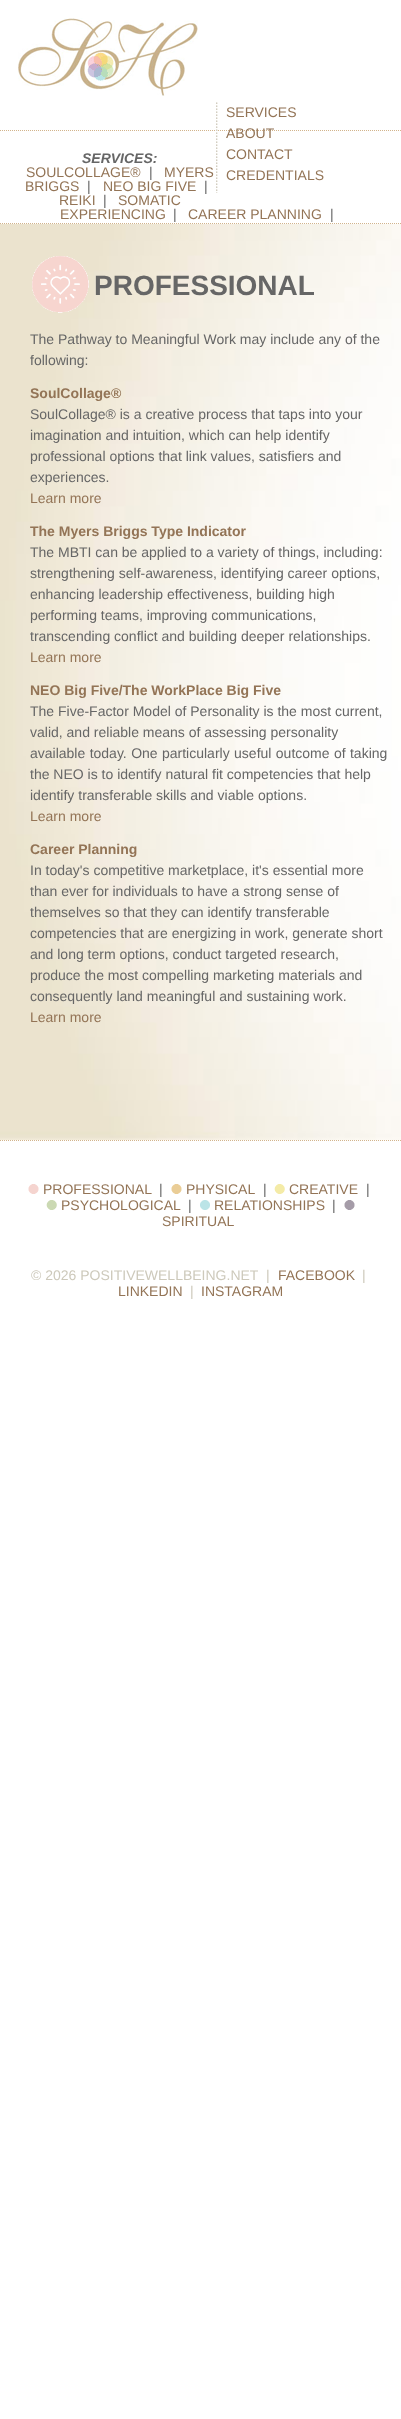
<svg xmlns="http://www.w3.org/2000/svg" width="401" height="2419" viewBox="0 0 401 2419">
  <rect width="100%" height="100%" fill="rgb(255,255,255)"/>
  <image x="18" y="18" width="180" height="78" href="pic1.png"/>
  <path d="M0 130.5H401" fill="none" stroke="rgb(210,180,140)" stroke-dasharray="1 1"/>
  <image x="216" y="102" width="2" height="91" href="pic2.png"/>
  <g font-family="Liberation Sans" font-size="14" fill="rgb(147,116,86)">
    <text>
      <tspan x="226" y="117">SERVICES</tspan>
      <tspan x="226" y="138">ABOUT</tspan>
      <tspan x="226" y="159">CONTACT</tspan>
      <tspan x="226" y="180">CREDENTIALS</tspan>
    </text>
  </g>
  <path d="M0 223.5H401" fill="none" stroke="rgb(210,180,140)" stroke-dasharray="1 1"/>
  <text x="82" y="163" font-family="Liberation Sans" font-size="14" font-weight="bold" font-style="italic" fill="rgb(102,102,102)">SERVICES:</text>
  <text x="26" y="177" font-family="Liberation Sans" font-size="14" fill="rgb(147,116,86)">SOULCOLLAGE®</text>
  <text x="149" y="177" font-family="Liberation Sans" font-size="14" fill="rgb(102,102,102)">|</text>
  <g font-family="Liberation Sans" font-size="14" fill="rgb(147,116,86)">
    <text x="164" y="177">MYERS</text>
    <text x="25" y="191">BRIGGS</text>
  </g>
  <text x="87" y="191" font-family="Liberation Sans" font-size="14" fill="rgb(102,102,102)">|</text>
  <text x="103" y="191" font-family="Liberation Sans" font-size="14" fill="rgb(147,116,86)">NEO BIG FIVE</text>
  <text x="204" y="191" font-family="Liberation Sans" font-size="14" fill="rgb(102,102,102)">|</text>
  <text x="59" y="205" font-family="Liberation Sans" font-size="14" fill="rgb(147,116,86)">REIKI</text>
  <text x="103" y="205" font-family="Liberation Sans" font-size="14" fill="rgb(102,102,102)">|</text>
  <g font-family="Liberation Sans" font-size="14" fill="rgb(147,116,86)">
    <text x="118" y="205">SOMATIC</text>
    <text x="60" y="219">EXPERIENCING</text>
  </g>
  <text x="173" y="219" font-family="Liberation Sans" font-size="14" fill="rgb(102,102,102)">|</text>
  <text x="188" y="219" font-family="Liberation Sans" font-size="14" fill="rgb(147,116,86)">CAREER PLANNING</text>
  <text x="330" y="219" font-family="Liberation Sans" font-size="14" fill="rgb(102,102,102)">|</text>
  <image x="0" y="224" width="401" height="916" href="pic3.png"/>
  <image x="32" y="256" width="57" height="57" href="pic4.png"/>
  <text x="94" y="295" font-family="Liberation Sans" font-size="28" font-weight="bold" fill="rgb(102,102,102)">PROFESSIONAL</text>
  <g font-family="Liberation Sans" font-size="14" fill="rgb(102,102,102)">
    <text>
      <tspan x="30" y="344">The Pathway to Meaningful Work may include any of the</tspan>
      <tspan x="30" y="365">following:</tspan>
    </text>
  </g>
  <text x="30" y="398" font-family="Liberation Sans" font-size="14" font-weight="bold" fill="rgb(147,116,86)">SoulCollage®</text>
  <g font-family="Liberation Sans" font-size="14" fill="rgb(102,102,102)">
    <text>
      <tspan x="30" y="419">SoulCollage® is a creative process that taps into your</tspan>
      <tspan x="30" y="440">imagination and intuition, which can help identify</tspan>
      <tspan x="30" y="461">professional options that link values, satisfiers and</tspan>
      <tspan x="30" y="482">experiences.</tspan>
    </text>
  </g>
  <text x="30" y="503" font-family="Liberation Sans" font-size="14" fill="rgb(147,116,86)">Learn more</text>
  <text x="30" y="536" font-family="Liberation Sans" font-size="14" font-weight="bold" fill="rgb(147,116,86)">The Myers Briggs Type Indicator</text>
  <g font-family="Liberation Sans" font-size="14" fill="rgb(102,102,102)">
    <text>
      <tspan x="30" y="557">The MBTI can be applied to a variety of things, including:</tspan>
      <tspan x="30" y="578">strengthening self-awareness, identifying career options,</tspan>
      <tspan x="30" y="599">enhancing leadership effectiveness, building high</tspan>
      <tspan x="30" y="620">performing teams, improving communications,</tspan>
      <tspan x="30" y="641">transcending conflict and building deeper relationships.</tspan>
    </text>
  </g>
  <text x="30" y="662" font-family="Liberation Sans" font-size="14" fill="rgb(147,116,86)">Learn more</text>
  <text x="30" y="695" font-family="Liberation Sans" font-size="14" font-weight="bold" fill="rgb(147,116,86)">NEO Big Five/The WorkPlace Big Five</text>
  <g font-family="Liberation Sans" font-size="14" fill="rgb(102,102,102)">
    <text>
      <tspan x="30" y="716">The Five-Factor Model of Personality is the most current,</tspan>
      <tspan x="30" y="737">valid, and reliable means of assessing personality</tspan>
      <tspan x="30" y="758" word-spacing="0.5">available today. One particularly useful outcome of taking</tspan>
      <tspan x="30" y="779">the NEO is to identify natural fit competencies that help</tspan>
      <tspan x="30" y="800">identify transferable skills and viable options.</tspan>
    </text>
  </g>
  <text x="30" y="821" font-family="Liberation Sans" font-size="14" fill="rgb(147,116,86)">Learn more</text>
  <text x="30" y="854" font-family="Liberation Sans" font-size="14" font-weight="bold" fill="rgb(147,116,86)">Career Planning</text>
  <g font-family="Liberation Sans" font-size="14" fill="rgb(102,102,102)">
    <text>
      <tspan x="30" y="875">In today's competitive marketplace, it's essential more</tspan>
      <tspan x="30" y="896">than ever for individuals to have a strong sense of</tspan>
      <tspan x="30" y="917">themselves so that they can identify transferable</tspan>
      <tspan x="30" y="938">competencies that are energizing in work, generate short</tspan>
      <tspan x="30" y="959">and long term options, conduct targeted research,</tspan>
      <tspan x="30" y="980">produce the most compelling marketing materials and</tspan>
      <tspan x="30" y="1001">consequently land meaningful and sustaining work.</tspan>
    </text>
  </g>
  <text x="30" y="1022" font-family="Liberation Sans" font-size="14" fill="rgb(147,116,86)">Learn more</text>
  <path d="M0 1140.5H401" fill="none" stroke="rgb(210,180,140)" stroke-dasharray="1 1"/>
  <image x="28" y="1184" width="11" height="10" href="pic5.png"/>
  <text x="43" y="1194" font-family="Liberation Sans" font-size="14" fill="rgb(147,116,86)">PROFESSIONAL</text>
  <text x="159" y="1194" font-family="Liberation Sans" font-size="14" fill="rgb(102,102,102)">|</text>
  <image x="171" y="1184" width="11" height="10" href="pic6.png"/>
  <text x="186" y="1194" font-family="Liberation Sans" font-size="14" fill="rgb(147,116,86)">PHYSICAL</text>
  <text x="263" y="1194" font-family="Liberation Sans" font-size="14" fill="rgb(102,102,102)">|</text>
  <image x="274" y="1184" width="11" height="10" href="pic7.png"/>
  <text x="289" y="1194" font-family="Liberation Sans" font-size="14" fill="rgb(147,116,86)">CREATIVE</text>
  <text x="366" y="1194" font-family="Liberation Sans" font-size="14" fill="rgb(102,102,102)">|</text>
  <image x="46" y="1200" width="11" height="10" href="pic8.png"/>
  <text x="61" y="1210" font-family="Liberation Sans" font-size="14" fill="rgb(147,116,86)">PSYCHOLOGICAL</text>
  <text x="188" y="1210" font-family="Liberation Sans" font-size="14" fill="rgb(102,102,102)">|</text>
  <image x="200" y="1200" width="10" height="10" href="pic9.png"/>
  <text x="214" y="1210" font-family="Liberation Sans" font-size="14" fill="rgb(147,116,86)">RELATIONSHIPS</text>
  <text x="332" y="1210" font-family="Liberation Sans" font-size="14" fill="rgb(102,102,102)">|</text>
  <image x="344" y="1200" width="11" height="10" href="pic10.png"/>
  <text x="162" y="1226" font-family="Liberation Sans" font-size="14" fill="rgb(147,116,86)">SPIRITUAL</text>
  <text x="31" y="1280" font-family="Liberation Sans" font-size="14" fill="rgb(205,201,187)" xml:space="preserve">© 2026 POSITIVEWELLBEING.NET  |</text>
  <text x="278" y="1280" font-family="Liberation Sans" font-size="14" fill="rgb(147,116,86)">FACEBOOK</text>
  <text x="362" y="1280" font-family="Liberation Sans" font-size="14" fill="rgb(205,201,187)">|</text>
  <text x="118" y="1296" font-family="Liberation Sans" font-size="14" fill="rgb(147,116,86)">LINKEDIN</text>
  <text x="190" y="1296" font-family="Liberation Sans" font-size="14" fill="rgb(205,201,187)">|</text>
  <text x="201" y="1296" font-family="Liberation Sans" font-size="14" fill="rgb(147,116,86)">INSTAGRAM</text>
</svg>
